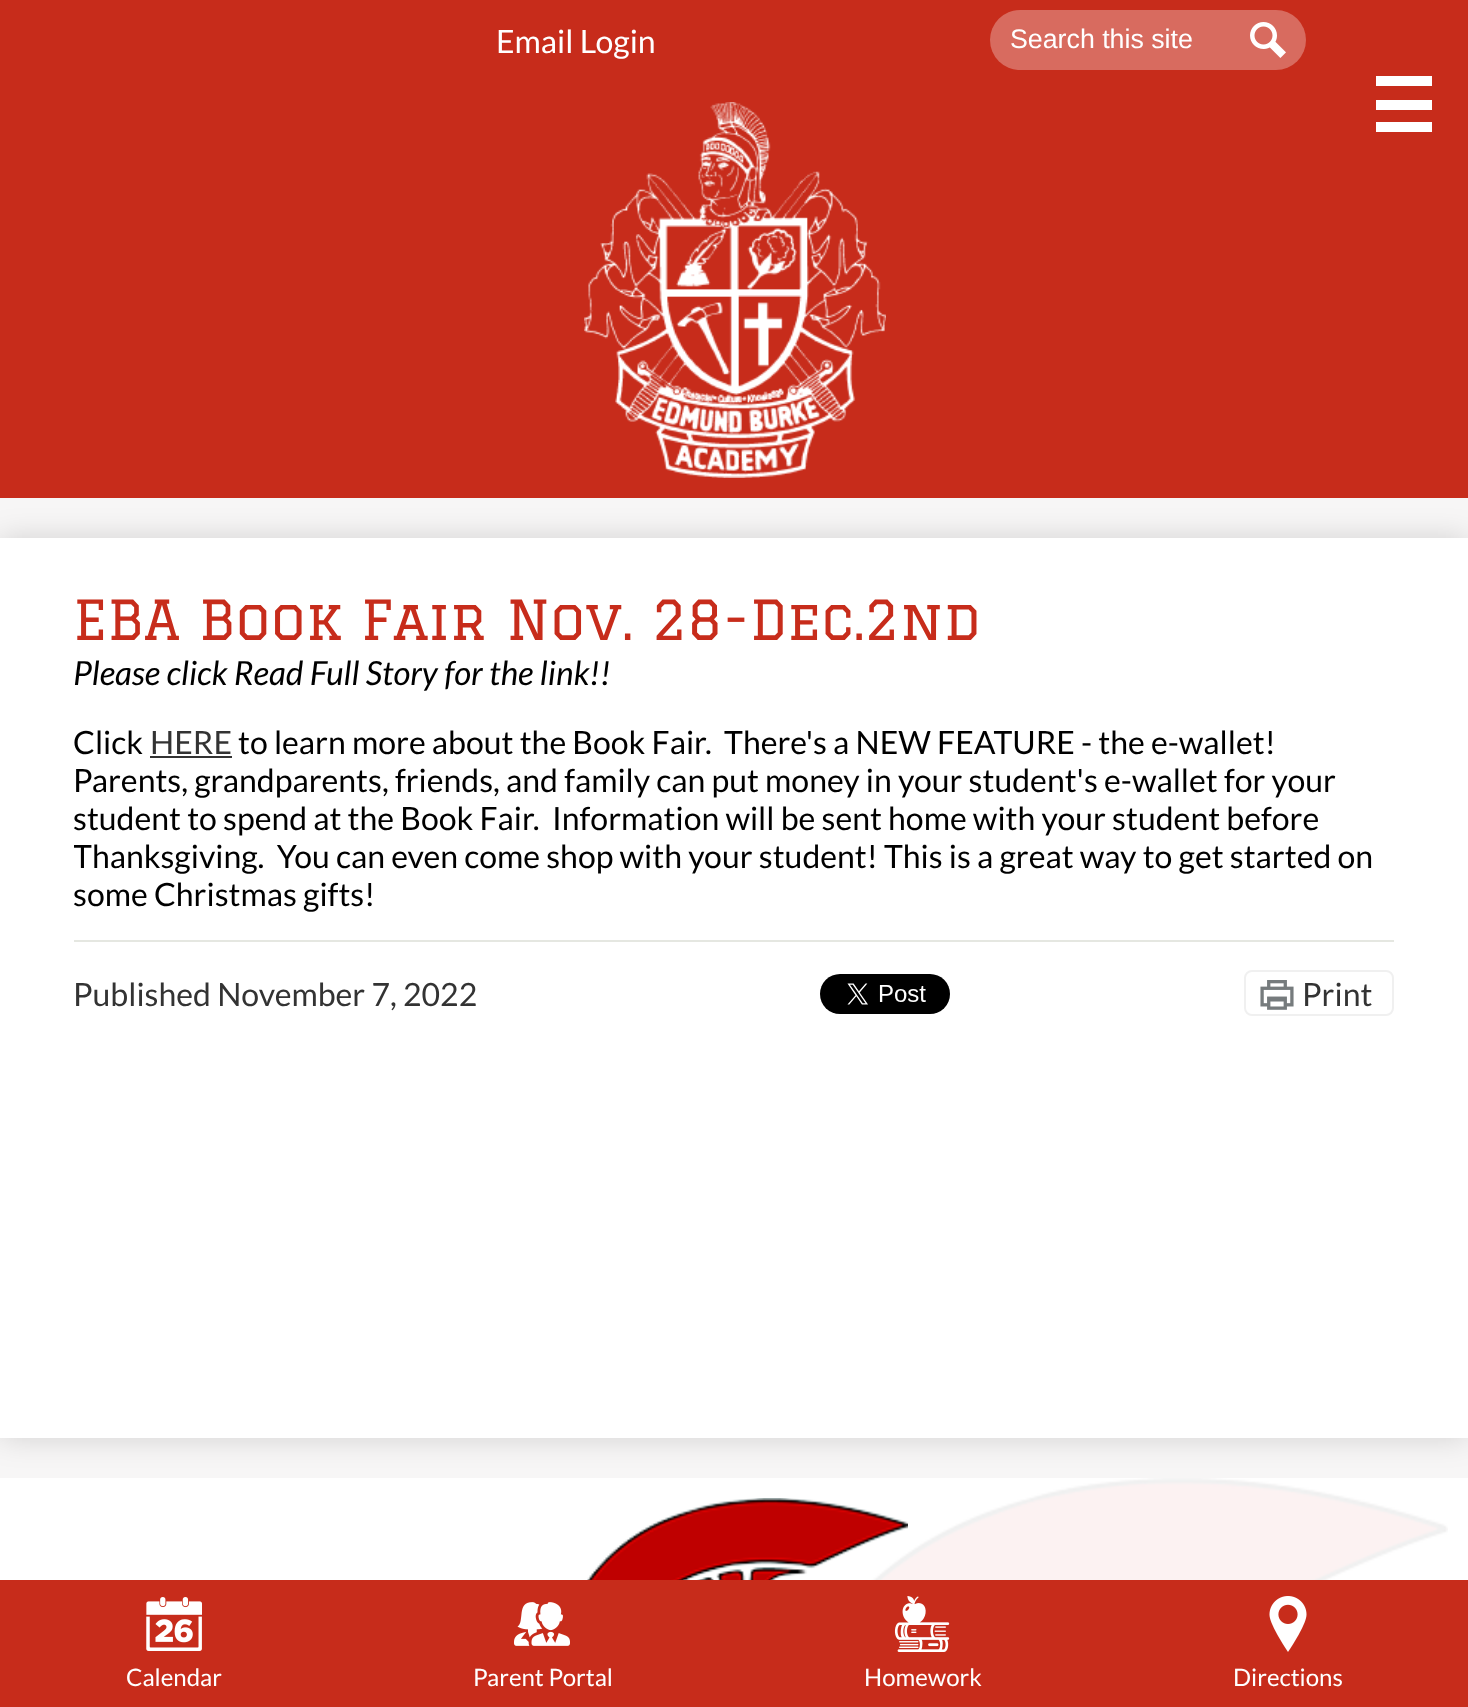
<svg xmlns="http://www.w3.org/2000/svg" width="1468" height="1707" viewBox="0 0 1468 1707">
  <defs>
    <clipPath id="clip1"><rect x="74" y="722" width="1320" height="190"/></clipPath>
  </defs>
  <rect width="100%" height="100%" fill="rgb(247,246,246)"/>
  <rect x="0" y="538" width="1468" height="900" fill="rgba(0,0,0,0.15)" filter="blur(15px)"/>
  <rect x="0" y="0" width="1468" height="498" fill="rgb(199,44,27)"/>
  <text x="496" y="53" font-family="Lato" font-size="32" fill="rgb(255,255,255)">Email Login</text>
  <rect x="990" y="10" width="316" height="60" rx="30" fill="rgb(216,107,95)"/>
  <text x="1010" y="48" font-family="Liberation Sans" font-size="26.75" fill="rgb(255,255,255)">Search this site</text>
  <image x="1250" y="22" width="36" height="36" href="pic1.png"/>
  <image x="584" y="102" width="302" height="376" href="pic2.png"/>
  <rect x="1376" y="76" width="56" height="10" fill="rgb(255,255,255)"/>
  <rect x="1376" y="100" width="56" height="10" fill="rgb(255,255,255)"/>
  <rect x="1376" y="122" width="56" height="10" fill="rgb(255,255,255)"/>
  <rect x="0" y="538" width="1468" height="900" fill="rgb(255,255,255)"/>
  <text x="73" y="640" font-family="Graduate" font-size="54" fill="rgb(199,44,27)">EBA Book Fair Nov. 28-Dec.2nd</text>
  <text x="73" y="685" font-family="Lato" font-size="33.3" font-style="italic" fill="rgb(0,0,0)">Please click Read Full Story for the link!!</text>
  <text x="73" y="754" font-family="Lato" font-size="32" fill="rgb(0,0,0)">Click</text>
  <text x="150" y="754" font-family="Lato" font-size="32" fill="rgb(51,51,51)">HERE</text>
  <rect x="150" y="756" width="82" height="2" fill="rgb(51,51,51)"/>
  <g font-family="Lato" font-size="32" fill="rgb(0,0,0)">
    <text x="238" y="754" xml:space="preserve">to learn more about the Book Fair.  There's a NEW FEATURE - the e-wallet!</text>
    <text xml:space="preserve"><tspan x="73" y="792">Parents, grandparents, friends, and family can put money in your student's e-wallet for your</tspan><tspan x="73" y="830">student to spend at the Book Fair.  Information will be sent home with your student before</tspan></text>
  </g>
  <g clip-path="url(#clip1)">
    <text x="73" y="868" font-family="Lato" font-size="32" fill="rgb(0,0,0)" xml:space="preserve">Thanksgiving.  You can even come shop with your student! This is a great way to get started on</text>
  </g>
  <text x="73" y="906" font-family="Lato" font-size="32" fill="rgb(0,0,0)">some Christmas gifts!</text>
  <rect x="74" y="940" width="1320" height="2" fill="rgb(229,231,225)"/>
  <text x="73" y="1006" font-family="Lato" font-size="32" fill="rgb(51,51,51)">Published November 7, 2022</text>
  <image x="820" y="974" width="130" height="40" href="pic3.png"/>
  <rect x="1245" y="971" width="148" height="44" rx="7" fill="none" stroke="rgb(240,240,240)" stroke-width="2"/>
  <image x="1260" y="980" width="34" height="30" href="pic4.png"/>
  <text x="1302" y="1006" font-family="Lato" font-size="32" fill="rgb(51,51,51)">Print</text>
  <rect x="0" y="1478" width="1468" height="102" fill="rgb(255,255,255)"/>
  <image x="789" y="1478" width="659" height="102" href="pic5.png"/>
  <image x="586" y="1498" width="322" height="82" href="pic6.png"/>
  <rect x="0" y="1580" width="1468" height="127" fill="rgb(199,44,27)"/>
  <image x="146" y="1597" width="56" height="54" href="pic7.png"/>
  <text x="126" y="1686" font-family="Lato" font-size="24" fill="rgb(255,255,255)">Calendar</text>
  <image x="514" y="1602" width="56" height="44" href="pic8.png"/>
  <text x="473" y="1686" font-family="Lato" font-size="24" fill="rgb(255,255,255)">Parent Portal</text>
  <image x="894" y="1596" width="56" height="56" href="pic9.png"/>
  <text x="864" y="1686" font-family="Lato" font-size="24" fill="rgb(255,255,255)">Homework</text>
  <image x="1269" y="1596" width="38" height="56" href="pic10.png"/>
  <text x="1233" y="1686" font-family="Lato" font-size="24" fill="rgb(255,255,255)">Directions</text>
</svg>
